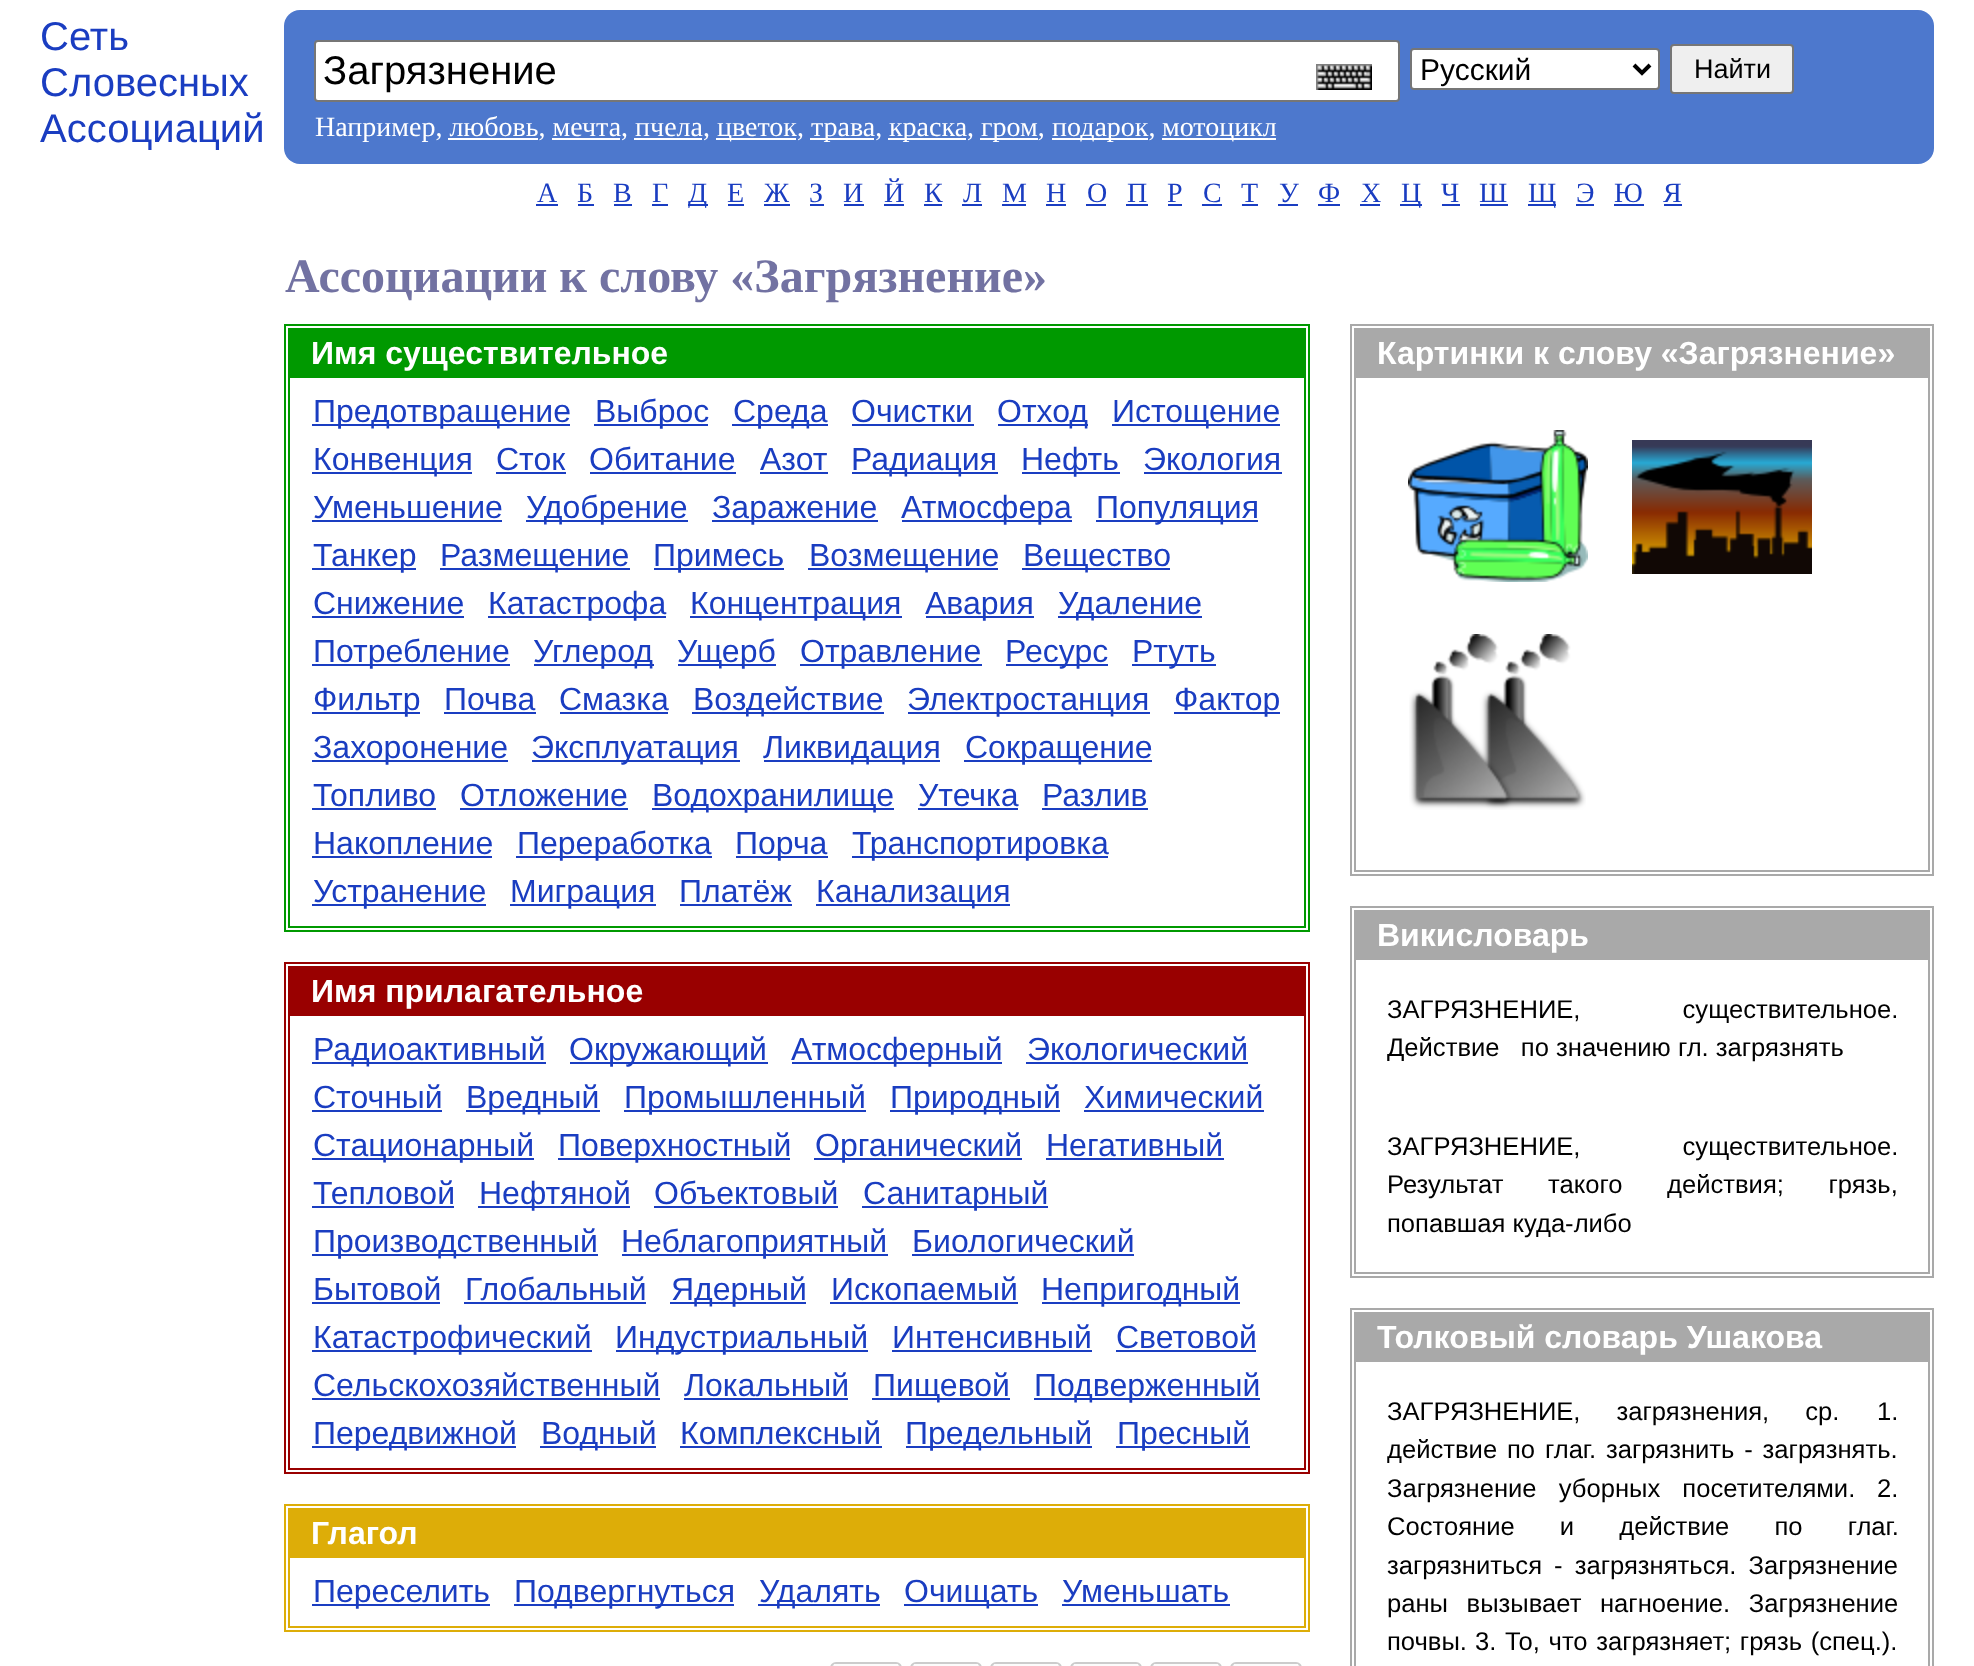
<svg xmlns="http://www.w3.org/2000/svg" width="1974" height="1666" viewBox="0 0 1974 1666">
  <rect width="100%" height="100%" fill="rgb(255,255,255)"/>
  <g font-family="Liberation Sans" font-size="40" fill="rgb(26,61,193)">
    <text>
      <tspan x="40" y="50">Сеть</tspan>
      <tspan x="40" y="96">Словесных</tspan>
      <tspan x="40" y="142">Ассоциаций</tspan>
    </text>
  </g>
  <rect x="284" y="10" width="1650" height="154" rx="16" fill="rgb(77,120,205)"/>
  <rect x="315" y="41" width="1084" height="60" rx="3" fill="rgb(255,255,255)" stroke="rgb(118,118,118)" stroke-width="2"/>
  <text x="323" y="84" font-family="Liberation Sans" font-size="40" fill="rgb(0,0,0)">Загрязнение</text>
  <image x="1316" y="64" width="56" height="26" href="pic1.png"/>
  <rect x="1411" y="49" width="248" height="40" rx="3" fill="rgb(255,255,255)" stroke="rgb(118,118,118)" stroke-width="2"/>
  <path d="M1634 65L1642 73L1650 65" fill="none" stroke="rgb(0,0,0)" stroke-width="4"/>
  <text x="1420" y="80" font-family="Liberation Sans" font-size="30" fill="rgb(0,0,0)">Русский</text>
  <rect x="1671" y="45" width="122" height="48" rx="3" fill="rgb(239,239,239)" stroke="rgb(118,118,118)" stroke-width="2"/>
  <text x="1694" y="78" font-family="Liberation Sans" font-size="27" fill="rgb(0,0,0)">Найти</text>
  <text x="315" y="136" font-family="Liberation Serif" font-size="28" fill="rgb(255,255,255)">Например, любовь, мечта, пчела,</text>
  <rect x="716" y="138" width="80" height="2" fill="rgb(255,255,255)"/>
  <text x="717" y="136" font-family="Liberation Serif" font-size="28" fill="rgb(255,255,255)">цветок,</text>
  <rect x="810" y="138" width="64" height="2" fill="rgb(255,255,255)"/>
  <text x="811" y="136" font-family="Liberation Serif" font-size="28" fill="rgb(255,255,255)">трава,</text>
  <rect x="888" y="138" width="78" height="2" fill="rgb(255,255,255)"/>
  <text x="889" y="136" font-family="Liberation Serif" font-size="28" fill="rgb(255,255,255)">краска,</text>
  <rect x="980" y="138" width="58" height="2" fill="rgb(255,255,255)"/>
  <text x="981" y="136" font-family="Liberation Serif" font-size="28" fill="rgb(255,255,255)">гром,</text>
  <rect x="1052" y="138" width="96" height="2" fill="rgb(255,255,255)"/>
  <text x="1052" y="136" font-family="Liberation Serif" font-size="28" fill="rgb(255,255,255)">подарок,</text>
  <rect x="1162" y="138" width="114" height="2" fill="rgb(255,255,255)"/>
  <text x="1162" y="136" font-family="Liberation Serif" font-size="28" fill="rgb(255,255,255)">мотоцикл</text>
  <rect x="448" y="138" width="90" height="2" fill="rgb(255,255,255)"/>
  <rect x="552" y="138" width="68" height="2" fill="rgb(255,255,255)"/>
  <rect x="634" y="138" width="68" height="2" fill="rgb(255,255,255)"/>
  <text x="537" y="202" font-family="Liberation Serif" font-size="28" fill="rgb(26,61,193)">А</text>
  <rect x="536" y="204" width="22" height="2" fill="rgb(26,61,193)"/>
  <text x="577" y="202" font-family="Liberation Serif" font-size="28" fill="rgb(26,61,193)">Б</text>
  <rect x="578" y="204" width="16" height="2" fill="rgb(26,61,193)"/>
  <text x="613" y="202" font-family="Liberation Serif" font-size="28" fill="rgb(26,61,193)">В</text>
  <rect x="614" y="204" width="18" height="2" fill="rgb(26,61,193)"/>
  <text x="652" y="202" font-family="Liberation Serif" font-size="28" fill="rgb(26,61,193)">Г</text>
  <rect x="652" y="204" width="16" height="2" fill="rgb(26,61,193)"/>
  <rect x="688" y="204" width="20" height="2" fill="rgb(26,61,193)"/>
  <g font-family="Liberation Serif" font-size="28" fill="rgb(26,61,193)">
    <text x="688" y="202">Д</text>
    <text x="727" y="202">Е</text>
  </g>
  <rect x="728" y="204" width="16" height="2" fill="rgb(26,61,193)"/>
  <text x="764" y="202" font-family="Liberation Serif" font-size="28" fill="rgb(26,61,193)">Ж</text>
  <rect x="764" y="204" width="26" height="2" fill="rgb(26,61,193)"/>
  <text x="809" y="202" font-family="Liberation Serif" font-size="28" fill="rgb(26,61,193)">З</text>
  <rect x="810" y="204" width="14" height="2" fill="rgb(26,61,193)"/>
  <text x="843" y="202" font-family="Liberation Serif" font-size="28" fill="rgb(26,61,193)">И</text>
  <rect x="844" y="204" width="20" height="2" fill="rgb(26,61,193)"/>
  <text x="884" y="202" font-family="Liberation Serif" font-size="28" fill="rgb(26,61,193)">Й</text>
  <rect x="884" y="204" width="20" height="2" fill="rgb(26,61,193)"/>
  <text x="924" y="202" font-family="Liberation Serif" font-size="28" fill="rgb(26,61,193)">К</text>
  <rect x="924" y="204" width="18" height="2" fill="rgb(26,61,193)"/>
  <text x="963" y="202" font-family="Liberation Serif" font-size="28" fill="rgb(26,61,193)">Л</text>
  <rect x="962" y="204" width="20" height="2" fill="rgb(26,61,193)"/>
  <text x="1002" y="202" font-family="Liberation Serif" font-size="28" fill="rgb(26,61,193)">М</text>
  <rect x="1002" y="204" width="24" height="2" fill="rgb(26,61,193)"/>
  <text x="1046" y="202" font-family="Liberation Serif" font-size="28" fill="rgb(26,61,193)">Н</text>
  <rect x="1046" y="204" width="20" height="2" fill="rgb(26,61,193)"/>
  <text x="1087" y="202" font-family="Liberation Serif" font-size="28" fill="rgb(26,61,193)">О</text>
  <rect x="1086" y="204" width="20" height="2" fill="rgb(26,61,193)"/>
  <text x="1127" y="202" font-family="Liberation Serif" font-size="28" fill="rgb(26,61,193)">П</text>
  <rect x="1126" y="204" width="22" height="2" fill="rgb(26,61,193)"/>
  <text x="1167" y="202" font-family="Liberation Serif" font-size="28" fill="rgb(26,61,193)">Р</text>
  <rect x="1168" y="204" width="14" height="2" fill="rgb(26,61,193)"/>
  <text x="1203" y="202" font-family="Liberation Serif" font-size="28" fill="rgb(26,61,193)">С</text>
  <rect x="1202" y="204" width="20" height="2" fill="rgb(26,61,193)"/>
  <text x="1241" y="202" font-family="Liberation Serif" font-size="28" fill="rgb(26,61,193)">Т</text>
  <rect x="1242" y="204" width="16" height="2" fill="rgb(26,61,193)"/>
  <text x="1279" y="202" font-family="Liberation Serif" font-size="28" fill="rgb(26,61,193)">У</text>
  <rect x="1278" y="204" width="20" height="2" fill="rgb(26,61,193)"/>
  <text x="1318" y="202" font-family="Liberation Serif" font-size="28" fill="rgb(26,61,193)">Ф</text>
  <rect x="1318" y="204" width="22" height="2" fill="rgb(26,61,193)"/>
  <text x="1361" y="202" font-family="Liberation Serif" font-size="28" fill="rgb(26,61,193)">Х</text>
  <rect x="1360" y="204" width="20" height="2" fill="rgb(26,61,193)"/>
  <rect x="1400" y="204" width="22" height="2" fill="rgb(26,61,193)"/>
  <g font-family="Liberation Serif" font-size="28" fill="rgb(26,61,193)">
    <text x="1401" y="202">Ц</text>
    <text x="1441" y="202">Ч</text>
  </g>
  <rect x="1442" y="204" width="18" height="2" fill="rgb(26,61,193)"/>
  <text x="1479" y="202" font-family="Liberation Serif" font-size="28" fill="rgb(26,61,193)">Ш</text>
  <rect x="1480" y="204" width="28" height="2" fill="rgb(26,61,193)"/>
  <rect x="1528" y="204" width="28" height="2" fill="rgb(26,61,193)"/>
  <g font-family="Liberation Serif" font-size="28" fill="rgb(26,61,193)">
    <text x="1528" y="202">Щ</text>
    <text x="1576" y="202">Э</text>
  </g>
  <rect x="1576" y="204" width="18" height="2" fill="rgb(26,61,193)"/>
  <text x="1614" y="202" font-family="Liberation Serif" font-size="28" fill="rgb(26,61,193)">Ю</text>
  <rect x="1614" y="204" width="30" height="2" fill="rgb(26,61,193)"/>
  <text x="1663" y="202" font-family="Liberation Serif" font-size="28" fill="rgb(26,61,193)">Я</text>
  <rect x="1664" y="204" width="18" height="2" fill="rgb(26,61,193)"/>
  <text x="285" y="292" font-family="Liberation Serif" font-size="48" font-weight="bold" fill="rgb(114,114,162)">Ассоциации к слову «Загрязнение»</text>
  <rect x="285" y="325" width="1024" height="606" fill="none" stroke="rgb(0,153,0)" stroke-width="2"/>
  <rect x="289" y="329" width="1016" height="598" fill="none" stroke="rgb(0,153,0)" stroke-width="2"/>
  <rect x="290" y="330" width="1014" height="48" fill="rgb(0,153,0)"/>
  <text x="311" y="364" font-family="Liberation Sans" font-size="32" font-weight="bold" fill="rgb(255,255,255)">Имя существительное</text>
  <rect x="312" y="424" width="258" height="2" fill="rgb(26,61,193)"/>
  <text x="313" y="422" font-family="Liberation Sans" font-size="32" fill="rgb(26,61,193)">Предотвращение</text>
  <rect x="594" y="424" width="114" height="2" fill="rgb(26,61,193)"/>
  <text x="595" y="422" font-family="Liberation Sans" font-size="32" fill="rgb(26,61,193)">Выброс</text>
  <rect x="732" y="424" width="96" height="2" fill="rgb(26,61,193)"/>
  <g font-family="Liberation Sans" font-size="32" fill="rgb(26,61,193)">
    <text x="733" y="422">Среда</text>
    <text x="851" y="422">Очистки</text>
  </g>
  <rect x="852" y="424" width="122" height="2" fill="rgb(26,61,193)"/>
  <rect x="998" y="424" width="90" height="2" fill="rgb(26,61,193)"/>
  <text x="997" y="422" font-family="Liberation Sans" font-size="32" fill="rgb(26,61,193)">Отход</text>
  <rect x="1112" y="424" width="168" height="2" fill="rgb(26,61,193)"/>
  <text x="1112" y="422" font-family="Liberation Sans" font-size="32" fill="rgb(26,61,193)">Истощение</text>
  <rect x="312" y="472" width="160" height="2" fill="rgb(26,61,193)"/>
  <g font-family="Liberation Sans" font-size="32" fill="rgb(26,61,193)">
    <text x="313" y="470">Конвенция</text>
    <text x="496" y="470">Сток</text>
  </g>
  <rect x="496" y="472" width="70" height="2" fill="rgb(26,61,193)"/>
  <text x="589" y="470" font-family="Liberation Sans" font-size="32" fill="rgb(26,61,193)">Обитание</text>
  <rect x="590" y="472" width="146" height="2" fill="rgb(26,61,193)"/>
  <text x="760" y="470" font-family="Liberation Sans" font-size="32" fill="rgb(26,61,193)">Азот</text>
  <rect x="760" y="472" width="68" height="2" fill="rgb(26,61,193)"/>
  <rect x="852" y="472" width="146" height="2" fill="rgb(26,61,193)"/>
  <text x="851" y="470" font-family="Liberation Sans" font-size="32" fill="rgb(26,61,193)">Радиация</text>
  <rect x="1022" y="472" width="98" height="2" fill="rgb(26,61,193)"/>
  <g font-family="Liberation Sans" font-size="32" fill="rgb(26,61,193)">
    <text x="1021" y="470">Нефть</text>
    <text x="1143" y="470">Экология</text>
  </g>
  <rect x="1144" y="472" width="138" height="2" fill="rgb(26,61,193)"/>
  <text x="313" y="518" font-family="Liberation Sans" font-size="32" fill="rgb(26,61,193)">Уменьшение</text>
  <rect x="312" y="520" width="190" height="2" fill="rgb(26,61,193)"/>
  <rect x="526" y="520" width="162" height="2" fill="rgb(26,61,193)"/>
  <text x="526" y="518" font-family="Liberation Sans" font-size="32" fill="rgb(26,61,193)">Удобрение</text>
  <rect x="712" y="520" width="166" height="2" fill="rgb(26,61,193)"/>
  <text x="712" y="518" font-family="Liberation Sans" font-size="32" fill="rgb(26,61,193)">Заражение</text>
  <rect x="902" y="520" width="170" height="2" fill="rgb(26,61,193)"/>
  <text x="901" y="518" font-family="Liberation Sans" font-size="32" fill="rgb(26,61,193)">Атмосфера</text>
  <rect x="1096" y="520" width="162" height="2" fill="rgb(26,61,193)"/>
  <text x="1096" y="518" font-family="Liberation Sans" font-size="32" fill="rgb(26,61,193)">Популяция</text>
  <rect x="312" y="568" width="104" height="2" fill="rgb(26,61,193)"/>
  <text x="313" y="566" font-family="Liberation Sans" font-size="32" fill="rgb(26,61,193)">Танкер</text>
  <rect x="440" y="568" width="190" height="2" fill="rgb(26,61,193)"/>
  <text x="440" y="566" font-family="Liberation Sans" font-size="32" fill="rgb(26,61,193)">Размещение</text>
  <rect x="654" y="568" width="130" height="2" fill="rgb(26,61,193)"/>
  <text x="653" y="566" font-family="Liberation Sans" font-size="32" fill="rgb(26,61,193)">Примесь</text>
  <rect x="808" y="568" width="190" height="2" fill="rgb(26,61,193)"/>
  <text x="809" y="566" font-family="Liberation Sans" font-size="32" fill="rgb(26,61,193)">Возмещение</text>
  <rect x="1022" y="568" width="148" height="2" fill="rgb(26,61,193)"/>
  <g font-family="Liberation Sans" font-size="32" fill="rgb(26,61,193)">
    <text x="1023" y="566">Вещество</text>
    <text x="313" y="614">Снижение</text>
  </g>
  <rect x="312" y="616" width="152" height="2" fill="rgb(26,61,193)"/>
  <rect x="488" y="616" width="178" height="2" fill="rgb(26,61,193)"/>
  <text x="488" y="614" font-family="Liberation Sans" font-size="32" fill="rgb(26,61,193)">Катастрофа</text>
  <rect x="690" y="616" width="212" height="2" fill="rgb(26,61,193)"/>
  <text x="690" y="614" font-family="Liberation Sans" font-size="32" fill="rgb(26,61,193)">Концентрация</text>
  <rect x="926" y="616" width="108" height="2" fill="rgb(26,61,193)"/>
  <text x="925" y="614" font-family="Liberation Sans" font-size="32" fill="rgb(26,61,193)">Авария</text>
  <rect x="1058" y="616" width="144" height="2" fill="rgb(26,61,193)"/>
  <text x="1058" y="614" font-family="Liberation Sans" font-size="32" fill="rgb(26,61,193)">Удаление</text>
  <rect x="312" y="664" width="198" height="2" fill="rgb(26,61,193)"/>
  <text x="313" y="662" font-family="Liberation Sans" font-size="32" fill="rgb(26,61,193)">Потребление</text>
  <rect x="534" y="664" width="120" height="2" fill="rgb(26,61,193)"/>
  <text x="533" y="662" font-family="Liberation Sans" font-size="32" fill="rgb(26,61,193)">Углерод</text>
  <rect x="678" y="664" width="98" height="2" fill="rgb(26,61,193)"/>
  <text x="677" y="662" font-family="Liberation Sans" font-size="32" fill="rgb(26,61,193)">Ущерб</text>
  <rect x="800" y="664" width="182" height="2" fill="rgb(26,61,193)"/>
  <text x="800" y="662" font-family="Liberation Sans" font-size="32" fill="rgb(26,61,193)">Отравление</text>
  <rect x="1006" y="664" width="102" height="2" fill="rgb(26,61,193)"/>
  <text x="1005" y="662" font-family="Liberation Sans" font-size="32" fill="rgb(26,61,193)">Ресурс</text>
  <rect x="1132" y="664" width="84" height="2" fill="rgb(26,61,193)"/>
  <text x="1132" y="662" font-family="Liberation Sans" font-size="32" fill="rgb(26,61,193)">Ртуть</text>
  <rect x="312" y="712" width="108" height="2" fill="rgb(26,61,193)"/>
  <g font-family="Liberation Sans" font-size="32" fill="rgb(26,61,193)">
    <text x="313" y="710">Фильтр</text>
    <text x="444" y="710">Почва</text>
  </g>
  <rect x="444" y="712" width="92" height="2" fill="rgb(26,61,193)"/>
  <text x="559" y="710" font-family="Liberation Sans" font-size="32" fill="rgb(26,61,193)">Смазка</text>
  <rect x="560" y="712" width="108" height="2" fill="rgb(26,61,193)"/>
  <rect x="692" y="712" width="192" height="2" fill="rgb(26,61,193)"/>
  <text x="693" y="710" font-family="Liberation Sans" font-size="32" fill="rgb(26,61,193)">Воздействие</text>
  <rect x="908" y="712" width="242" height="2" fill="rgb(26,61,193)"/>
  <text x="907" y="710" font-family="Liberation Sans" font-size="32" fill="rgb(26,61,193)">Электростанция</text>
  <rect x="1174" y="712" width="106" height="2" fill="rgb(26,61,193)"/>
  <text x="1174" y="710" font-family="Liberation Sans" font-size="32" fill="rgb(26,61,193)">Фактор</text>
  <rect x="312" y="760" width="196" height="2" fill="rgb(26,61,193)"/>
  <text x="313" y="758" font-family="Liberation Sans" font-size="32" fill="rgb(26,61,193)">Захоронение</text>
  <rect x="532" y="760" width="208" height="2" fill="rgb(26,61,193)"/>
  <text x="531" y="758" font-family="Liberation Sans" font-size="32" fill="rgb(26,61,193)">Эксплуатация</text>
  <rect x="764" y="760" width="176" height="2" fill="rgb(26,61,193)"/>
  <text x="763" y="758" font-family="Liberation Sans" font-size="32" fill="rgb(26,61,193)">Ликвидация</text>
  <rect x="964" y="760" width="188" height="2" fill="rgb(26,61,193)"/>
  <g font-family="Liberation Sans" font-size="32" fill="rgb(26,61,193)">
    <text x="965" y="758">Сокращение</text>
    <text x="313" y="806">Топливо</text>
  </g>
  <rect x="312" y="808" width="124" height="2" fill="rgb(26,61,193)"/>
  <text x="460" y="806" font-family="Liberation Sans" font-size="32" fill="rgb(26,61,193)">Отложение</text>
  <rect x="460" y="808" width="168" height="2" fill="rgb(26,61,193)"/>
  <rect x="652" y="808" width="242" height="2" fill="rgb(26,61,193)"/>
  <g font-family="Liberation Sans" font-size="32" fill="rgb(26,61,193)">
    <text x="652" y="806">Водохранилище</text>
    <text x="918" y="806">Утечка</text>
  </g>
  <rect x="918" y="808" width="100" height="2" fill="rgb(26,61,193)"/>
  <text x="1042" y="806" font-family="Liberation Sans" font-size="32" fill="rgb(26,61,193)">Разлив</text>
  <rect x="1042" y="808" width="106" height="2" fill="rgb(26,61,193)"/>
  <text x="313" y="854" font-family="Liberation Sans" font-size="32" fill="rgb(26,61,193)">Накопление</text>
  <rect x="312" y="856" width="180" height="2" fill="rgb(26,61,193)"/>
  <rect x="516" y="856" width="196" height="2" fill="rgb(26,61,193)"/>
  <text x="517" y="854" font-family="Liberation Sans" font-size="32" fill="rgb(26,61,193)">Переработка</text>
  <rect x="736" y="856" width="92" height="2" fill="rgb(26,61,193)"/>
  <text x="735" y="854" font-family="Liberation Sans" font-size="32" fill="rgb(26,61,193)">Порча</text>
  <rect x="852" y="856" width="256" height="2" fill="rgb(26,61,193)"/>
  <text x="852" y="854" font-family="Liberation Sans" font-size="32" fill="rgb(26,61,193)">Транспортировка</text>
  <rect x="312" y="904" width="174" height="2" fill="rgb(26,61,193)"/>
  <text x="313" y="902" font-family="Liberation Sans" font-size="32" fill="rgb(26,61,193)">Устранение</text>
  <rect x="510" y="904" width="146" height="2" fill="rgb(26,61,193)"/>
  <g font-family="Liberation Sans" font-size="32" fill="rgb(26,61,193)">
    <text x="510" y="902">Миграция</text>
    <text x="679" y="902">Платёж</text>
  </g>
  <rect x="680" y="904" width="112" height="2" fill="rgb(26,61,193)"/>
  <rect x="816" y="904" width="194" height="2" fill="rgb(26,61,193)"/>
  <text x="816" y="902" font-family="Liberation Sans" font-size="32" fill="rgb(26,61,193)">Канализация</text>
  <rect x="285" y="963" width="1024" height="510" fill="none" stroke="rgb(153,0,0)" stroke-width="2"/>
  <rect x="289" y="967" width="1016" height="502" fill="none" stroke="rgb(153,0,0)" stroke-width="2"/>
  <rect x="290" y="968" width="1014" height="48" fill="rgb(153,0,0)"/>
  <text x="311" y="1002" font-family="Liberation Sans" font-size="32" font-weight="bold" fill="rgb(255,255,255)">Имя прилагательное</text>
  <rect x="312" y="1062" width="234" height="2" fill="rgb(26,61,193)"/>
  <text x="313" y="1060" font-family="Liberation Sans" font-size="32" fill="rgb(26,61,193)">Радиоактивный</text>
  <rect x="570" y="1062" width="198" height="2" fill="rgb(26,61,193)"/>
  <text x="569" y="1060" font-family="Liberation Sans" font-size="32" fill="rgb(26,61,193)">Окружающий</text>
  <rect x="792" y="1062" width="210" height="2" fill="rgb(26,61,193)"/>
  <g font-family="Liberation Sans" font-size="32" fill="rgb(26,61,193)">
    <text x="791" y="1060">Атмосферный</text>
    <text x="1027" y="1060">Экологический</text>
  </g>
  <rect x="1026" y="1062" width="222" height="2" fill="rgb(26,61,193)"/>
  <text x="313" y="1108" font-family="Liberation Sans" font-size="32" fill="rgb(26,61,193)">Сточный</text>
  <rect x="312" y="1110" width="130" height="2" fill="rgb(26,61,193)"/>
  <rect x="466" y="1110" width="134" height="2" fill="rgb(26,61,193)"/>
  <text x="466" y="1108" font-family="Liberation Sans" font-size="32" fill="rgb(26,61,193)">Вредный</text>
  <rect x="624" y="1110" width="242" height="2" fill="rgb(26,61,193)"/>
  <text x="624" y="1108" font-family="Liberation Sans" font-size="32" fill="rgb(26,61,193)">Промышленный</text>
  <rect x="890" y="1110" width="170" height="2" fill="rgb(26,61,193)"/>
  <g font-family="Liberation Sans" font-size="32" fill="rgb(26,61,193)">
    <text x="890" y="1108">Природный</text>
    <text x="1084" y="1108">Химический</text>
  </g>
  <rect x="1084" y="1110" width="180" height="2" fill="rgb(26,61,193)"/>
  <rect x="312" y="1158" width="222" height="2" fill="rgb(26,61,193)"/>
  <text x="313" y="1156" font-family="Liberation Sans" font-size="32" fill="rgb(26,61,193)">Стационарный</text>
  <rect x="558" y="1158" width="232" height="2" fill="rgb(26,61,193)"/>
  <text x="558" y="1156" font-family="Liberation Sans" font-size="32" fill="rgb(26,61,193)">Поверхностный</text>
  <rect x="814" y="1158" width="208" height="2" fill="rgb(26,61,193)"/>
  <g font-family="Liberation Sans" font-size="32" fill="rgb(26,61,193)">
    <text x="815" y="1156">Органический</text>
    <text x="1046" y="1156">Негативный</text>
  </g>
  <rect x="1046" y="1158" width="178" height="2" fill="rgb(26,61,193)"/>
  <text x="313" y="1204" font-family="Liberation Sans" font-size="32" fill="rgb(26,61,193)">Тепловой</text>
  <rect x="312" y="1206" width="142" height="2" fill="rgb(26,61,193)"/>
  <rect x="478" y="1206" width="152" height="2" fill="rgb(26,61,193)"/>
  <g font-family="Liberation Sans" font-size="32" fill="rgb(26,61,193)">
    <text x="479" y="1204">Нефтяной</text>
    <text x="654" y="1204">Объектовый</text>
  </g>
  <rect x="654" y="1206" width="184" height="2" fill="rgb(26,61,193)"/>
  <rect x="862" y="1206" width="186" height="2" fill="rgb(26,61,193)"/>
  <text x="863" y="1204" font-family="Liberation Sans" font-size="32" fill="rgb(26,61,193)">Санитарный</text>
  <rect x="312" y="1254" width="286" height="2" fill="rgb(26,61,193)"/>
  <text x="313" y="1252" font-family="Liberation Sans" font-size="32" fill="rgb(26,61,193)">Производственный</text>
  <rect x="622" y="1254" width="266" height="2" fill="rgb(26,61,193)"/>
  <g font-family="Liberation Sans" font-size="32" fill="rgb(26,61,193)">
    <text x="621" y="1252">Неблагоприятный</text>
    <text x="912" y="1252">Биологический</text>
  </g>
  <rect x="912" y="1254" width="222" height="2" fill="rgb(26,61,193)"/>
  <text x="313" y="1300" font-family="Liberation Sans" font-size="32" fill="rgb(26,61,193)">Бытовой</text>
  <rect x="312" y="1302" width="128" height="2" fill="rgb(26,61,193)"/>
  <text x="465" y="1300" font-family="Liberation Sans" font-size="32" fill="rgb(26,61,193)">Глобальный</text>
  <rect x="464" y="1302" width="182" height="2" fill="rgb(26,61,193)"/>
  <rect x="670" y="1302" width="136" height="2" fill="rgb(26,61,193)"/>
  <g font-family="Liberation Sans" font-size="32" fill="rgb(26,61,193)">
    <text x="671" y="1300">Ядерный</text>
    <text x="831" y="1300">Ископаемый</text>
  </g>
  <rect x="830" y="1302" width="188" height="2" fill="rgb(26,61,193)"/>
  <rect x="1042" y="1302" width="198" height="2" fill="rgb(26,61,193)"/>
  <text x="1041" y="1300" font-family="Liberation Sans" font-size="32" fill="rgb(26,61,193)">Непригодный</text>
  <rect x="312" y="1350" width="280" height="2" fill="rgb(26,61,193)"/>
  <text x="313" y="1348" font-family="Liberation Sans" font-size="32" fill="rgb(26,61,193)">Катастрофический</text>
  <rect x="616" y="1350" width="252" height="2" fill="rgb(26,61,193)"/>
  <g font-family="Liberation Sans" font-size="32" fill="rgb(26,61,193)">
    <text x="615" y="1348">Индустриальный</text>
    <text x="892" y="1348">Интенсивный</text>
  </g>
  <rect x="892" y="1350" width="200" height="2" fill="rgb(26,61,193)"/>
  <text x="1116" y="1348" font-family="Liberation Sans" font-size="32" fill="rgb(26,61,193)">Световой</text>
  <rect x="1116" y="1350" width="140" height="2" fill="rgb(26,61,193)"/>
  <text x="313" y="1396" font-family="Liberation Sans" font-size="32" fill="rgb(26,61,193)">Сельскохозяйственный</text>
  <rect x="312" y="1398" width="348" height="2" fill="rgb(26,61,193)"/>
  <text x="684" y="1396" font-family="Liberation Sans" font-size="32" fill="rgb(26,61,193)">Локальный</text>
  <rect x="684" y="1398" width="164" height="2" fill="rgb(26,61,193)"/>
  <rect x="872" y="1398" width="138" height="2" fill="rgb(26,61,193)"/>
  <text x="873" y="1396" font-family="Liberation Sans" font-size="32" fill="rgb(26,61,193)">Пищевой</text>
  <rect x="1034" y="1398" width="226" height="2" fill="rgb(26,61,193)"/>
  <text x="1034" y="1396" font-family="Liberation Sans" font-size="32" fill="rgb(26,61,193)">Подверженный</text>
  <rect x="312" y="1446" width="204" height="2" fill="rgb(26,61,193)"/>
  <text x="313" y="1444" font-family="Liberation Sans" font-size="32" fill="rgb(26,61,193)">Передвижной</text>
  <rect x="540" y="1446" width="116" height="2" fill="rgb(26,61,193)"/>
  <g font-family="Liberation Sans" font-size="32" fill="rgb(26,61,193)">
    <text x="541" y="1444">Водный</text>
    <text x="680" y="1444">Комплексный</text>
  </g>
  <rect x="680" y="1446" width="202" height="2" fill="rgb(26,61,193)"/>
  <rect x="906" y="1446" width="186" height="2" fill="rgb(26,61,193)"/>
  <text x="905" y="1444" font-family="Liberation Sans" font-size="32" fill="rgb(26,61,193)">Предельный</text>
  <rect x="1116" y="1446" width="134" height="2" fill="rgb(26,61,193)"/>
  <text x="1117" y="1444" font-family="Liberation Sans" font-size="32" fill="rgb(26,61,193)">Пресный</text>
  <rect x="285" y="1505" width="1024" height="126" fill="none" stroke="rgb(221,173,8)" stroke-width="2"/>
  <rect x="289" y="1509" width="1016" height="118" fill="none" stroke="rgb(221,173,8)" stroke-width="2"/>
  <rect x="290" y="1510" width="1014" height="48" fill="rgb(221,173,8)"/>
  <text x="311" y="1544" font-family="Liberation Sans" font-size="32" font-weight="bold" fill="rgb(255,255,255)">Глагол</text>
  <rect x="312" y="1604" width="178" height="2" fill="rgb(26,61,193)"/>
  <text x="313" y="1602" font-family="Liberation Sans" font-size="32" fill="rgb(26,61,193)">Переселить</text>
  <rect x="514" y="1604" width="220" height="2" fill="rgb(26,61,193)"/>
  <text x="514" y="1602" font-family="Liberation Sans" font-size="32" fill="rgb(26,61,193)">Подвергнуться</text>
  <rect x="758" y="1604" width="122" height="2" fill="rgb(26,61,193)"/>
  <text x="759" y="1602" font-family="Liberation Sans" font-size="32" fill="rgb(26,61,193)">Удалять</text>
  <rect x="904" y="1604" width="134" height="2" fill="rgb(26,61,193)"/>
  <g font-family="Liberation Sans" font-size="32" fill="rgb(26,61,193)">
    <text x="904" y="1602">Очищать</text>
    <text x="1062" y="1602">Уменьшать</text>
  </g>
  <rect x="1062" y="1604" width="168" height="2" fill="rgb(26,61,193)"/>
  <rect x="831" y="1663" width="70" height="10" rx="5" fill="rgb(241,241,241)" stroke="rgb(204,204,204)" stroke-width="2"/>
  <rect x="834" y="1664" width="64" height="2" fill="rgb(252,252,252)"/>
  <rect x="911" y="1663" width="70" height="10" rx="5" fill="rgb(241,241,241)" stroke="rgb(204,204,204)" stroke-width="2"/>
  <rect x="914" y="1664" width="64" height="2" fill="rgb(252,252,252)"/>
  <rect x="991" y="1663" width="70" height="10" rx="5" fill="rgb(241,241,241)" stroke="rgb(204,204,204)" stroke-width="2"/>
  <rect x="994" y="1664" width="64" height="2" fill="rgb(252,252,252)"/>
  <rect x="1071" y="1663" width="70" height="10" rx="5" fill="rgb(241,241,241)" stroke="rgb(204,204,204)" stroke-width="2"/>
  <rect x="1074" y="1664" width="64" height="2" fill="rgb(252,252,252)"/>
  <rect x="1151" y="1663" width="70" height="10" rx="5" fill="rgb(241,241,241)" stroke="rgb(204,204,204)" stroke-width="2"/>
  <rect x="1154" y="1664" width="64" height="2" fill="rgb(252,252,252)"/>
  <rect x="1231" y="1663" width="70" height="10" rx="5" fill="rgb(241,241,241)" stroke="rgb(204,204,204)" stroke-width="2"/>
  <rect x="1234" y="1664" width="64" height="2" fill="rgb(252,252,252)"/>
  <rect x="1351" y="325" width="582" height="550" fill="none" stroke="rgb(169,169,169)" stroke-width="2"/>
  <rect x="1355" y="329" width="574" height="542" fill="none" stroke="rgb(169,169,169)" stroke-width="2"/>
  <rect x="1356" y="330" width="572" height="48" fill="rgb(169,169,169)"/>
  <text x="1377" y="364" font-family="Liberation Sans" font-size="32" font-weight="bold" fill="rgb(255,255,255)">Картинки к слову «Загрязнение»</text>
  <image x="1408" y="430" width="180" height="152" href="pic2.png"/>
  <image x="1632" y="440" width="180" height="134" href="pic3.png"/>
  <image x="1409" y="634" width="177" height="176" href="pic4.png"/>
  <rect x="1351" y="907" width="582" height="370" fill="none" stroke="rgb(169,169,169)" stroke-width="2"/>
  <rect x="1355" y="911" width="574" height="362" fill="none" stroke="rgb(169,169,169)" stroke-width="2"/>
  <rect x="1356" y="912" width="572" height="48" fill="rgb(169,169,169)"/>
  <text x="1377" y="946" font-family="Liberation Sans" font-size="32" font-weight="bold" fill="rgb(255,255,255)">Викисловарь</text>
  <g font-family="Liberation Sans" font-size="25.6" fill="rgb(0,0,0)">
    <text xml:space="preserve"><tspan x="1387" y="1018" word-spacing="95">ЗАГРЯЗНЕНИЕ, существительное.</tspan><tspan x="1387" y="1056">Действие   по значению гл. загрязнять</tspan></text>
    <text>
      <tspan x="1387" y="1155" word-spacing="95">ЗАГРЯЗНЕНИЕ, существительное.</tspan>
      <tspan x="1387" y="1193" word-spacing="37.5">Результат такого действия; грязь,</tspan>
      <tspan x="1387" y="1232">попавшая куда-либо</tspan>
    </text>
  </g>
  <rect x="1351" y="1309" width="582" height="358" fill="none" stroke="rgb(169,169,169)" stroke-width="2"/>
  <rect x="1355" y="1313" width="574" height="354" fill="none" stroke="rgb(169,169,169)" stroke-width="2"/>
  <rect x="1356" y="1314" width="572" height="48" fill="rgb(169,169,169)"/>
  <text x="1377" y="1348" font-family="Liberation Sans" font-size="32" font-weight="bold" fill="rgb(255,255,255)">Толковый словарь Ушакова</text>
  <g font-family="Liberation Sans" font-size="25.6" fill="rgb(0,0,0)">
    <text x="1387" y="1420" word-spacing="29">ЗАГРЯЗНЕНИЕ, загрязнения, ср.</text>
    <text x="1877" y="1420">1.</text>
    <text>
      <tspan x="1387" y="1458" word-spacing="2.75">действие по глаг. загрязнить - загрязнять.</tspan>
      <tspan x="1387" y="1497" word-spacing="15">Загрязнение уборных посетителями.</tspan>
    </text>
    <text x="1877" y="1497">2.</text>
    <text>
      <tspan x="1387" y="1535" word-spacing="38">Состояние и действие по глаг.</tspan>
      <tspan x="1387" y="1574" word-spacing="5">загрязниться - загрязняться. Загрязнение</tspan>
      <tspan x="1387" y="1612" word-spacing="11.5">раны вызывает нагноение. Загрязнение</tspan>
      <tspan x="1387" y="1650">почвы.</tspan>
    </text>
    <text x="1475" y="1650" word-spacing="1.5">3. То, что загрязняет; грязь (спец.).</text>
  </g>
</svg>
